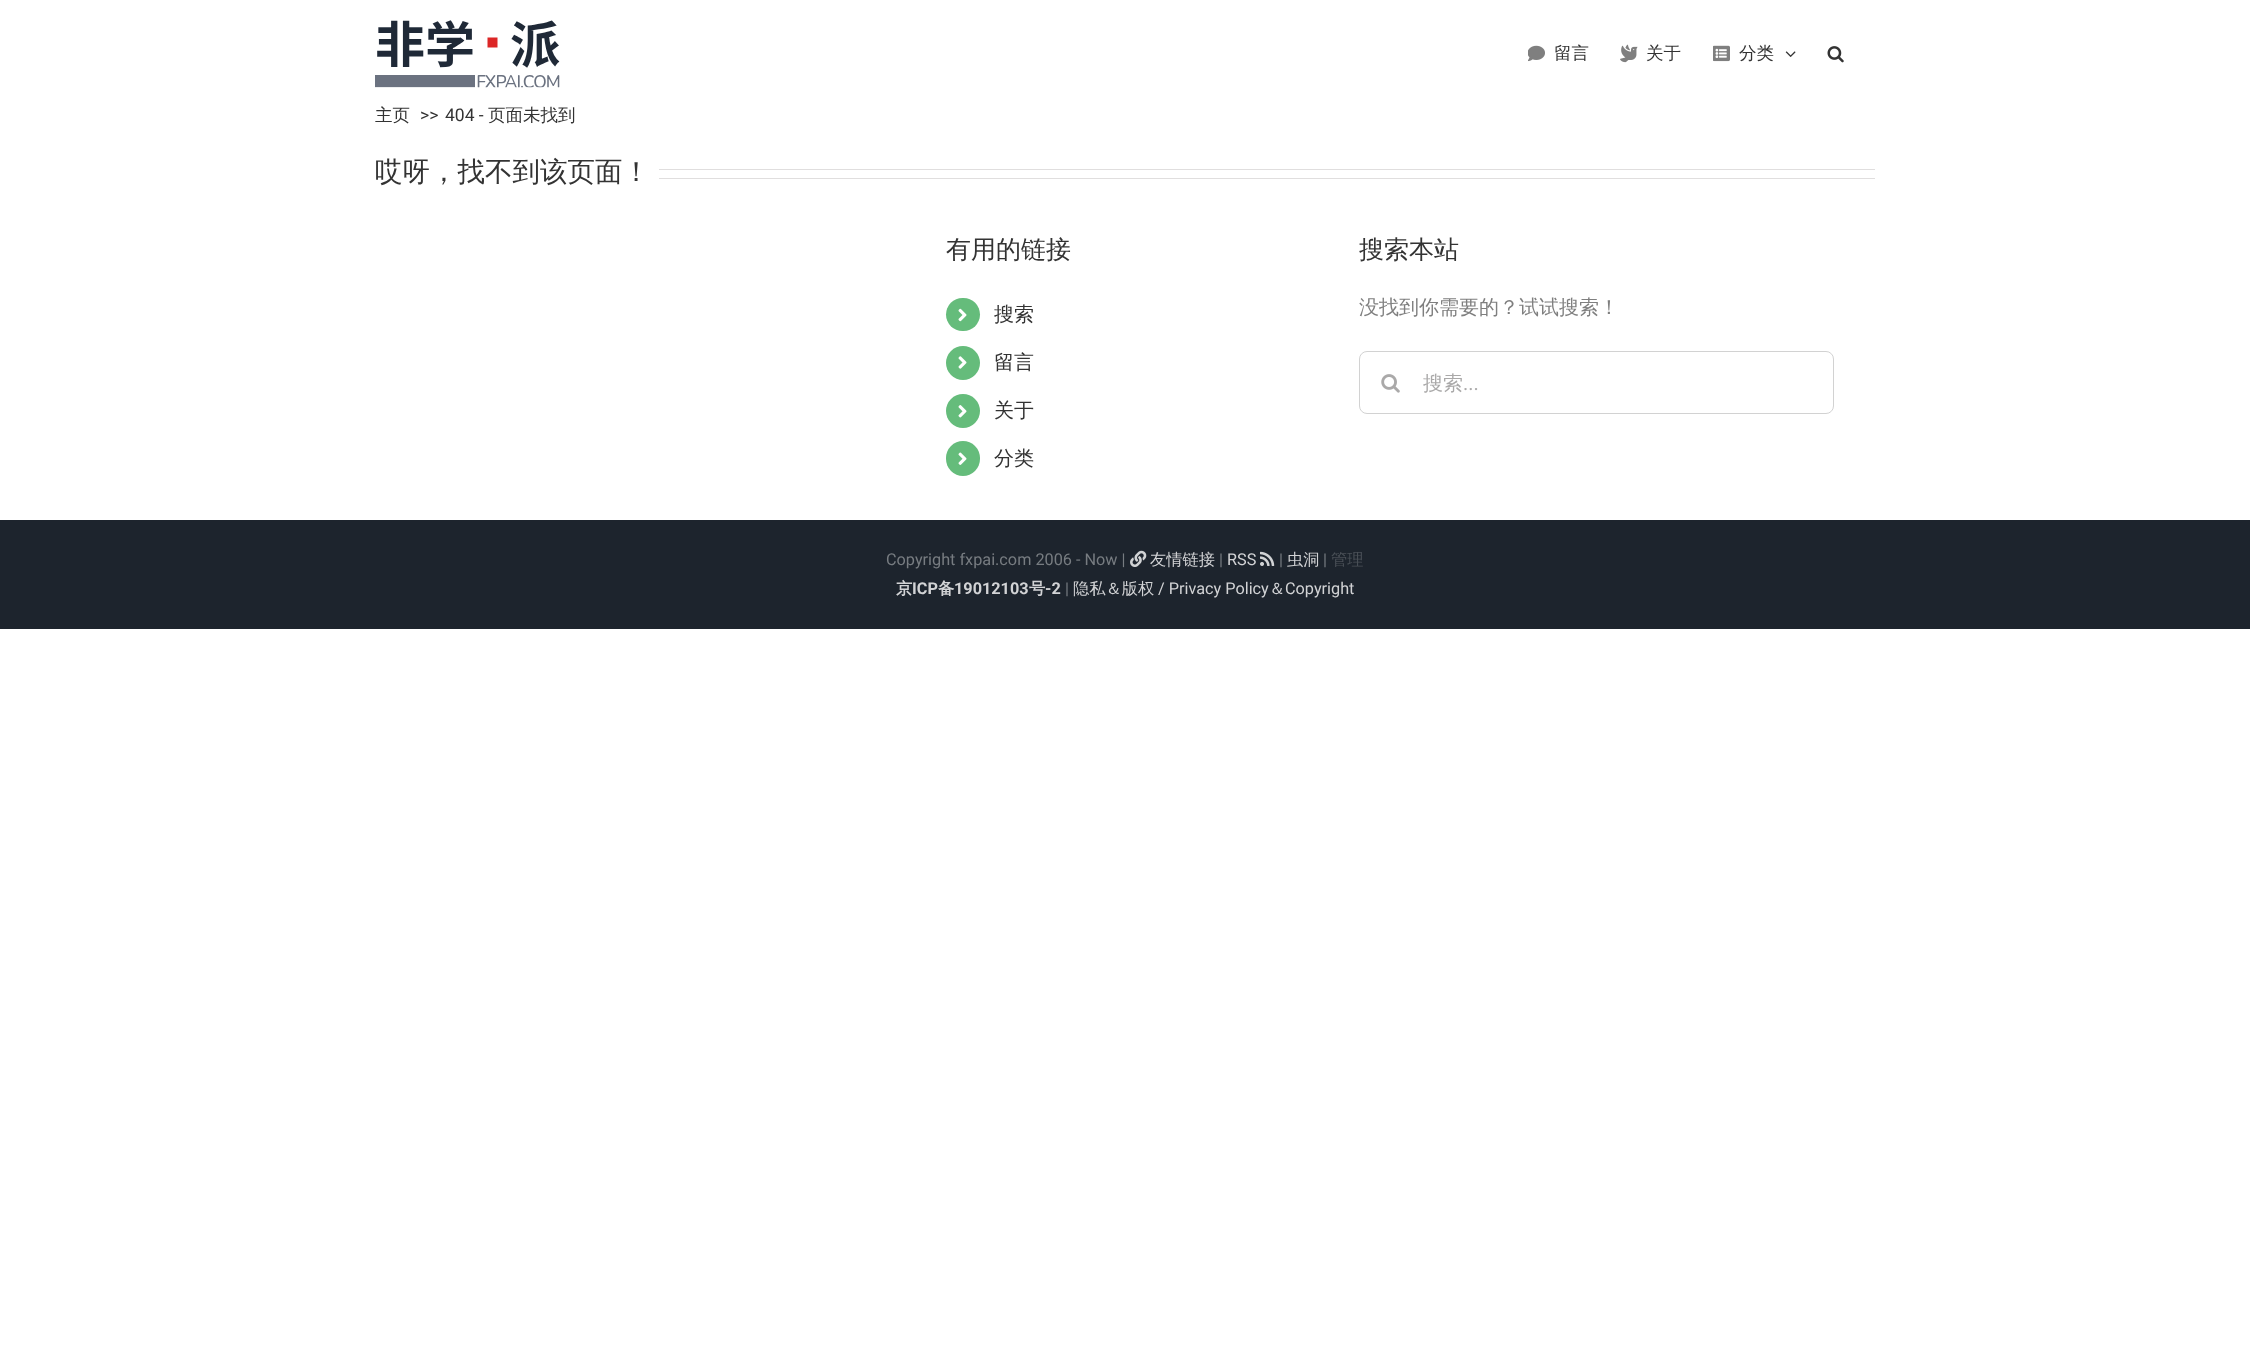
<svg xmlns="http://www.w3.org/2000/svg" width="2250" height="1350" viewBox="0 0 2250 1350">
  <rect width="100%" height="100%" fill="rgb(255,255,255)"/>
  <image x="375" y="20" width="185" height="68" href="pic1.png"/>
  <image x="1528" y="45" width="17" height="17" href="pic2.png"/>
  <text x="1554" y="59" font-family="WenQuanYi Zen Hei" font-size="17.5" font-weight="500" fill="rgb(51,51,51)">留言</text>
  <image x="1620" y="44" width="18" height="19" href="pic3.png"/>
  <text x="1646" y="59" font-family="WenQuanYi Zen Hei" font-size="17.5" font-weight="500" fill="rgb(51,51,51)">关于</text>
  <image x="1713" y="45" width="17" height="17" href="pic4.png"/>
  <text x="1739" y="59" font-family="WenQuanYi Zen Hei" font-size="17.5" font-weight="500" fill="rgb(51,51,51)">分类</text>
  <image x="1785" y="51" width="11" height="6" href="pic5.png"/>
  <image x="1827" y="46" width="17" height="17" href="pic6.png"/>
  <text x="375" y="121" font-family="WenQuanYi Zen Hei" font-size="17.5" font-weight="500" fill="rgb(51,51,51)">主页</text>
  <g font-family="Roboto" font-size="17.5" fill="rgb(51,51,51)">
    <text x="420" y="121">&gt;&gt;</text>
    <text x="445" y="121">404 -</text>
  </g>
  <text x="488" y="121" font-family="WenQuanYi Zen Hei" font-size="17.5" font-weight="500" fill="rgb(51,51,51)">页面未找到</text>
  <text x="375" y="181" font-family="WenQuanYi Zen Hei" font-size="27.5" font-weight="500" fill="rgb(51,51,51)">哎呀，找不到该页面！</text>
  <rect x="659" y="169" width="1216" height="1" fill="rgb(224,222,222)"/>
  <rect x="659" y="178" width="1216" height="1" fill="rgb(224,222,222)"/>
  <text x="946" y="258" font-family="WenQuanYi Zen Hei" font-size="25" font-weight="500" fill="rgb(51,51,51)">有用的链接</text>
  <rect x="946" y="298" width="34" height="33" rx="16.5" fill="rgb(101,188,123)"/>
  <image x="958" y="308" width="9" height="14" href="pic7.png"/>
  <text x="994" y="321" font-family="WenQuanYi Zen Hei" font-size="20" font-weight="500" fill="rgb(51,51,51)">搜索</text>
  <circle cx="963" cy="363" r="17" fill="rgb(101,188,123)"/>
  <image x="958" y="356" width="9" height="13" href="pic8.png"/>
  <text x="994" y="369" font-family="WenQuanYi Zen Hei" font-size="20" font-weight="500" fill="rgb(51,51,51)">留言</text>
  <circle cx="963" cy="411" r="17" fill="rgb(101,188,123)"/>
  <image x="958" y="405" width="9" height="13" href="pic9.png"/>
  <text x="994" y="417" font-family="WenQuanYi Zen Hei" font-size="20" font-weight="500" fill="rgb(51,51,51)">关于</text>
  <rect x="946" y="441" width="34" height="35" rx="17" fill="rgb(101,188,123)"/>
  <image x="958" y="452" width="9" height="13" href="pic10.png"/>
  <text x="994" y="465" font-family="WenQuanYi Zen Hei" font-size="20" font-weight="500" fill="rgb(51,51,51)">分类</text>
  <text x="1359" y="258" font-family="WenQuanYi Zen Hei" font-size="25" font-weight="500" fill="rgb(51,51,51)">搜索本站</text>
  <text x="1359" y="314" font-family="WenQuanYi Zen Hei" font-size="20" font-weight="500" fill="rgb(127,127,127)">没找到你需要的？试试搜索！</text>
  <rect x="1359.5" y="351.5" width="474" height="62" rx="7.5" fill="none" stroke="rgb(210,210,210)"/>
  <image x="1381" y="374" width="19" height="19" href="pic11.png"/>
  <text x="1423" y="390" font-family="WenQuanYi Zen Hei" font-size="20" font-weight="500" fill="rgb(170,169,169)">搜索</text>
  <text x="1463" y="390" font-family="Roboto" font-size="20" fill="rgb(170,169,169)">...</text>
  <rect x="0" y="520" width="2250" height="109" fill="rgb(29,36,45)"/>
  <text x="886" y="565" font-family="Roboto" font-size="16.25" fill="rgb(119,124,129)">Copyright fxpai.com 2006 - Now |</text>
  <image x="1130" y="550" width="17" height="17" href="pic12.png"/>
  <text x="1150" y="565" font-family="WenQuanYi Zen Hei" font-size="16.25" font-weight="500" fill="rgb(210,211,213)">友情链接</text>
  <text x="1219" y="565" font-family="Roboto" font-size="16.25" fill="rgb(119,124,129)">|</text>
  <text x="1227" y="565" font-family="Roboto" font-size="16.25" fill="rgb(210,211,213)">RSS</text>
  <image x="1260" y="551" width="15" height="15" href="pic13.png"/>
  <text x="1279" y="565" font-family="Roboto" font-size="16.25" fill="rgb(119,124,129)">|</text>
  <text x="1287" y="565" font-family="WenQuanYi Zen Hei" font-size="16.25" font-weight="500" fill="rgb(210,211,213)">虫洞</text>
  <text x="1323" y="565" font-family="Roboto" font-size="16.25" fill="rgb(119,124,129)">|</text>
  <text x="1331" y="565" font-family="WenQuanYi Zen Hei" font-size="16.25" font-weight="500" fill="rgb(74,80,87)">管理</text>
  <text x="896" y="594" font-family="WenQuanYi Zen Hei" font-size="16.25" font-weight="bold" fill="rgb(210,211,213)">京</text>
  <text x="912" y="594" font-family="Roboto" font-size="16.25" font-weight="bold" fill="rgb(210,211,213)">ICP</text>
  <text x="938" y="594" font-family="WenQuanYi Zen Hei" font-size="16.25" font-weight="bold" fill="rgb(210,211,213)">备</text>
  <text x="954" y="594" font-family="Roboto" font-size="16.25" font-weight="bold" fill="rgb(210,211,213)">19012103</text>
  <text x="1029" y="594" font-family="WenQuanYi Zen Hei" font-size="16.25" font-weight="bold" fill="rgb(210,211,213)">号</text>
  <text x="1045" y="594" font-family="Roboto" font-size="16.25" font-weight="bold" fill="rgb(210,211,213)">-2</text>
  <text x="1065" y="594" font-family="Roboto" font-size="16.25" fill="rgb(119,124,129)">|</text>
  <text x="1073" y="594" font-family="WenQuanYi Zen Hei" font-size="16.25" font-weight="500" fill="rgb(210,211,213)">隐私＆版权</text>
  <text x="1158" y="594" font-family="Roboto" font-size="16.25" fill="rgb(210,211,213)">/ Privacy Policy</text>
  <text x="1269" y="594" font-family="WenQuanYi Zen Hei" font-size="16.25" font-weight="500" fill="rgb(210,211,213)">＆</text>
  <text x="1285" y="594" font-family="Roboto" font-size="16.25" fill="rgb(210,211,213)">Copyright</text>
</svg>
